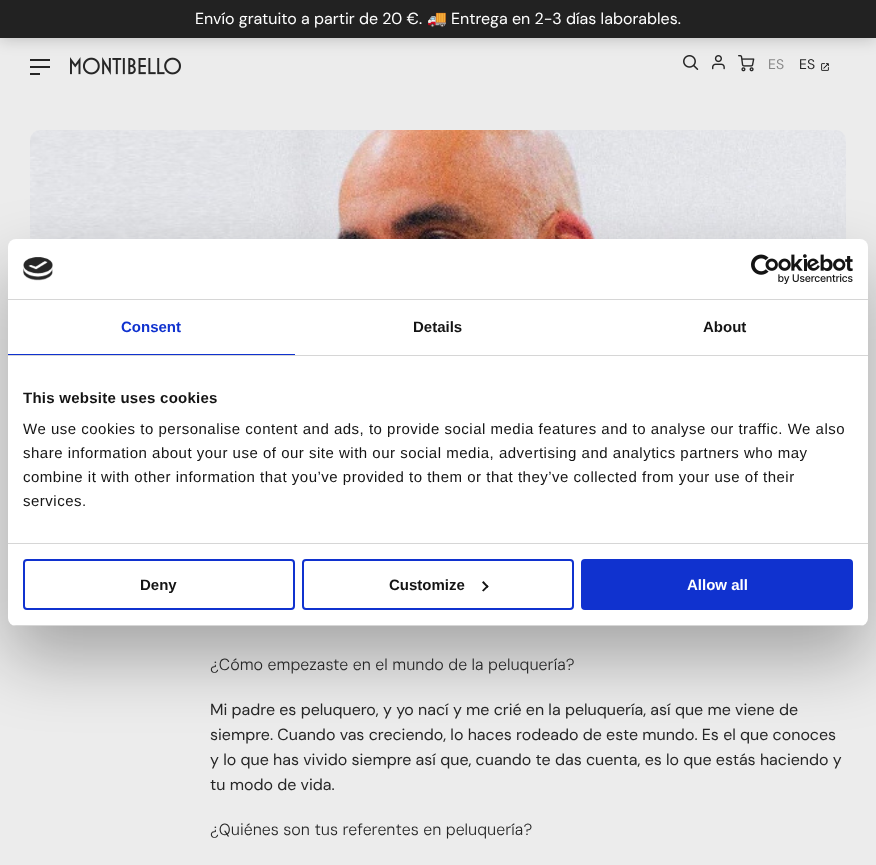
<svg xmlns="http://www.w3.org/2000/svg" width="876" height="865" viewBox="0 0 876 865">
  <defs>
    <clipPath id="clip1"><rect x="8" y="239" width="860" height="387" rx="8"/></clipPath>
  </defs>
  <rect width="100%" height="100%" fill="rgb(236,236,236)"/>
  <rect x="30" y="59" width="20" height="2" fill="rgb(38,38,38)"/>
  <image x="70" y="57" width="111" height="18" href="pic1.png"/>
  <image x="683" y="55" width="16" height="15" href="pic2.png"/>
  <image x="712" y="55" width="13" height="15" href="pic3.png"/>
  <image x="738" y="55" width="17" height="17" href="pic4.png"/>
  <image x="821" y="63" width="8" height="8" href="pic5.png"/>
  <rect x="0" y="1" width="876" height="38" fill="rgba(0,0,0,0.2)" filter="blur(8px)"/>
  <rect x="0" y="0" width="876" height="38" fill="rgb(34,34,34)"/>
  <text x="195" y="24" font-family="DM Sans" font-size="16" fill="rgb(255,255,255)">Envío gratuito a partir de 20 €.</text>
  <text x="427" y="24" font-family="Noto Color Emoji" font-size="16" fill="rgb(255,255,255)">🚚</text>
  <text x="451" y="24" font-family="DM Sans" font-size="16" fill="rgb(255,255,255)">Entrega en 2-3 días laborables.</text>
  <rect x="30" y="66" width="20" height="2" fill="rgb(38,38,38)"/>
  <rect x="30" y="73" width="10" height="2" fill="rgb(38,38,38)"/>
  <text x="768" y="69" font-family="'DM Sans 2'" font-size="14" fill="rgb(136,136,136)">ES</text>
  <text x="799" y="69" font-family="'DM Sans 2'" font-size="14" fill="rgb(38,38,38)">ES</text>
  <image x="30" y="130" width="816" height="109" href="pic8.png"/>
  <rect x="8" y="271" width="860" height="387" rx="8" fill="rgba(0,0,0,0.3)" filter="blur(34px)"/>
  <rect x="8" y="239" width="860" height="387" rx="8" fill="rgb(255,255,255)"/>
  <rect x="8" y="299" width="860" height="1" fill="rgb(214,214,214)"/>
  <image x="23" y="257" width="30" height="24" href="pic6.png"/>
  <image x="751" y="254" width="102" height="30" href="pic7.png"/>
  <rect x="8" y="355" width="860" height="1" fill="rgb(214,214,214)"/>
  <rect x="8" y="354" width="287" height="1" fill="rgb(16,50,207)"/>
  <text x="121" y="332" font-family="Liberation Sans" font-size="15" font-weight="bold" fill="rgb(16,50,207)">Consent</text>
  <g font-family="Liberation Sans" font-size="15" font-weight="bold" fill="rgb(20,20,20)">
    <text x="413" y="332">Details</text>
    <text x="703" y="332">About</text>
  </g>
  <rect x="8" y="543" width="860" height="1" fill="rgb(214,214,214)"/>
  <text x="23" y="403" font-family="Liberation Sans" font-size="15" font-weight="bold" letter-spacing="0.25" fill="rgb(20,20,20)">This website uses cookies</text>
  <g font-family="Liberation Sans" font-size="15" letter-spacing="0.5" fill="rgb(20,20,20)">
    <text>
      <tspan x="23" y="434">We use cookies to personalise content and ads, to provide social media features and to analyse our traffic. We also</tspan>
      <tspan x="23" y="458">share information about your use of our site with our social media, advertising and analytics partners who may</tspan>
      <tspan x="23" y="482">combine it with other information that you’ve provided to them or that they’ve collected from your use of their</tspan>
      <tspan x="23" y="506">services.</tspan>
    </text>
  </g>
  <g clip-path="url(#clip1)">
    <rect x="8" y="625" width="860" height="1" fill="rgb(214,214,214)"/>
  </g>
  <rect x="24" y="560" width="270" height="49" rx="3" fill="none" stroke="rgb(16,50,207)" stroke-width="2"/>
  <text x="140" y="590" font-family="Liberation Sans" font-size="15" font-weight="bold" fill="rgb(20,20,20)">Deny</text>
  <rect x="303" y="560" width="270" height="49" rx="3" fill="none" stroke="rgb(16,50,207)" stroke-width="2"/>
  <text x="389" y="590" font-family="Liberation Sans" font-size="15" font-weight="bold" fill="rgb(20,20,20)">Customize</text>
  <path d="M483.5 581L488.5 586.5L487.5 588L482 582.5Z" fill="rgb(20,20,20)"/>
  <path d="M487.5 585L488.5 586.5L483.5 591.5L482 590.5Z" fill="rgb(20,20,20)"/>
  <rect x="582" y="560" width="270" height="49" rx="3" fill="rgb(16,50,207)" stroke="rgb(16,50,207)" stroke-width="2"/>
  <text x="687" y="590" font-family="Liberation Sans" font-size="15" font-weight="bold" fill="rgb(255,255,255)">Allow all</text>
  <text x="210" y="670" font-family="DM Sans" font-size="16" font-weight="300" fill="rgb(38,38,38)">¿Cómo empezaste en el mundo de la peluquería?</text>
  <g font-family="DM Sans" font-size="16" fill="rgb(38,38,38)">
    <text>
      <tspan x="210" y="715">Mi padre es peluquero, y yo nací y me crié en la peluquería, así que me viene de</tspan>
      <tspan x="210" y="740">siempre. Cuando vas creciendo, lo haces rodeado de este mundo. Es el que conoces</tspan>
      <tspan x="210" y="765">y lo que has vivido siempre así que, cuando te das cuenta, es lo que estás haciendo y</tspan>
      <tspan x="210" y="790">tu modo de vida.</tspan>
    </text>
  </g>
  <text x="210" y="835" font-family="DM Sans" font-size="16" font-weight="300" fill="rgb(38,38,38)">¿Quiénes son tus referentes en peluquería?</text>
</svg>
